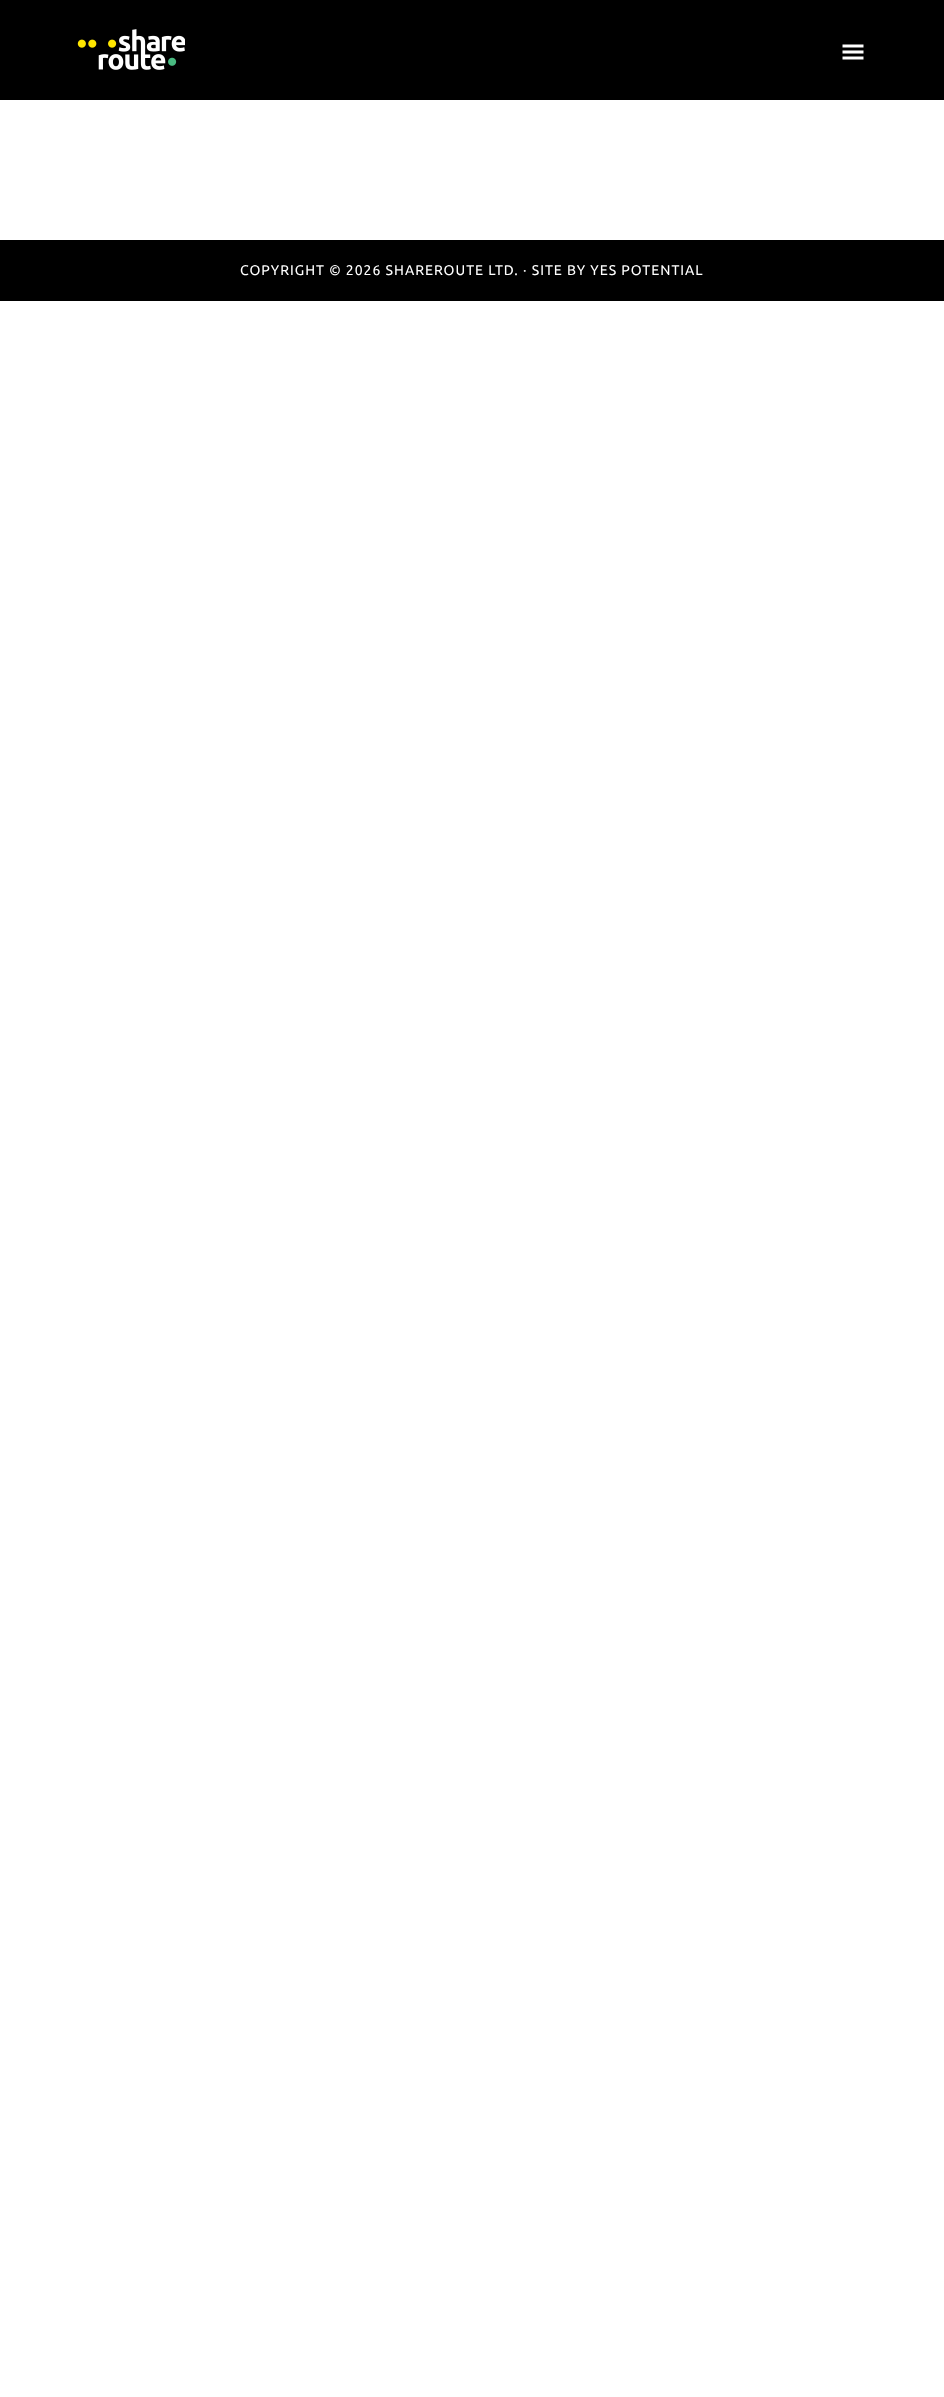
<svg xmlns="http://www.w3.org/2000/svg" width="944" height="2397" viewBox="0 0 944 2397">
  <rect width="100%" height="100%" fill="rgb(255,255,255)"/>
  <rect x="0" y="0" width="944" height="100" fill="rgb(0,0,0)"/>
  <image x="77" y="29" width="108" height="41" href="pic1.png"/>
  <image x="842" y="44" width="22" height="16" href="pic2.png"/>
  <rect x="0" y="240" width="944" height="61" fill="rgb(0,0,0)"/>
  <text x="240" y="275" font-family="Ubuntu" font-size="14" letter-spacing="1" fill="rgb(255,255,255)">COPYRIGHT © 2026 SHAREROUTE LTD. · SITE BY YES POTENTIAL</text>
</svg>
